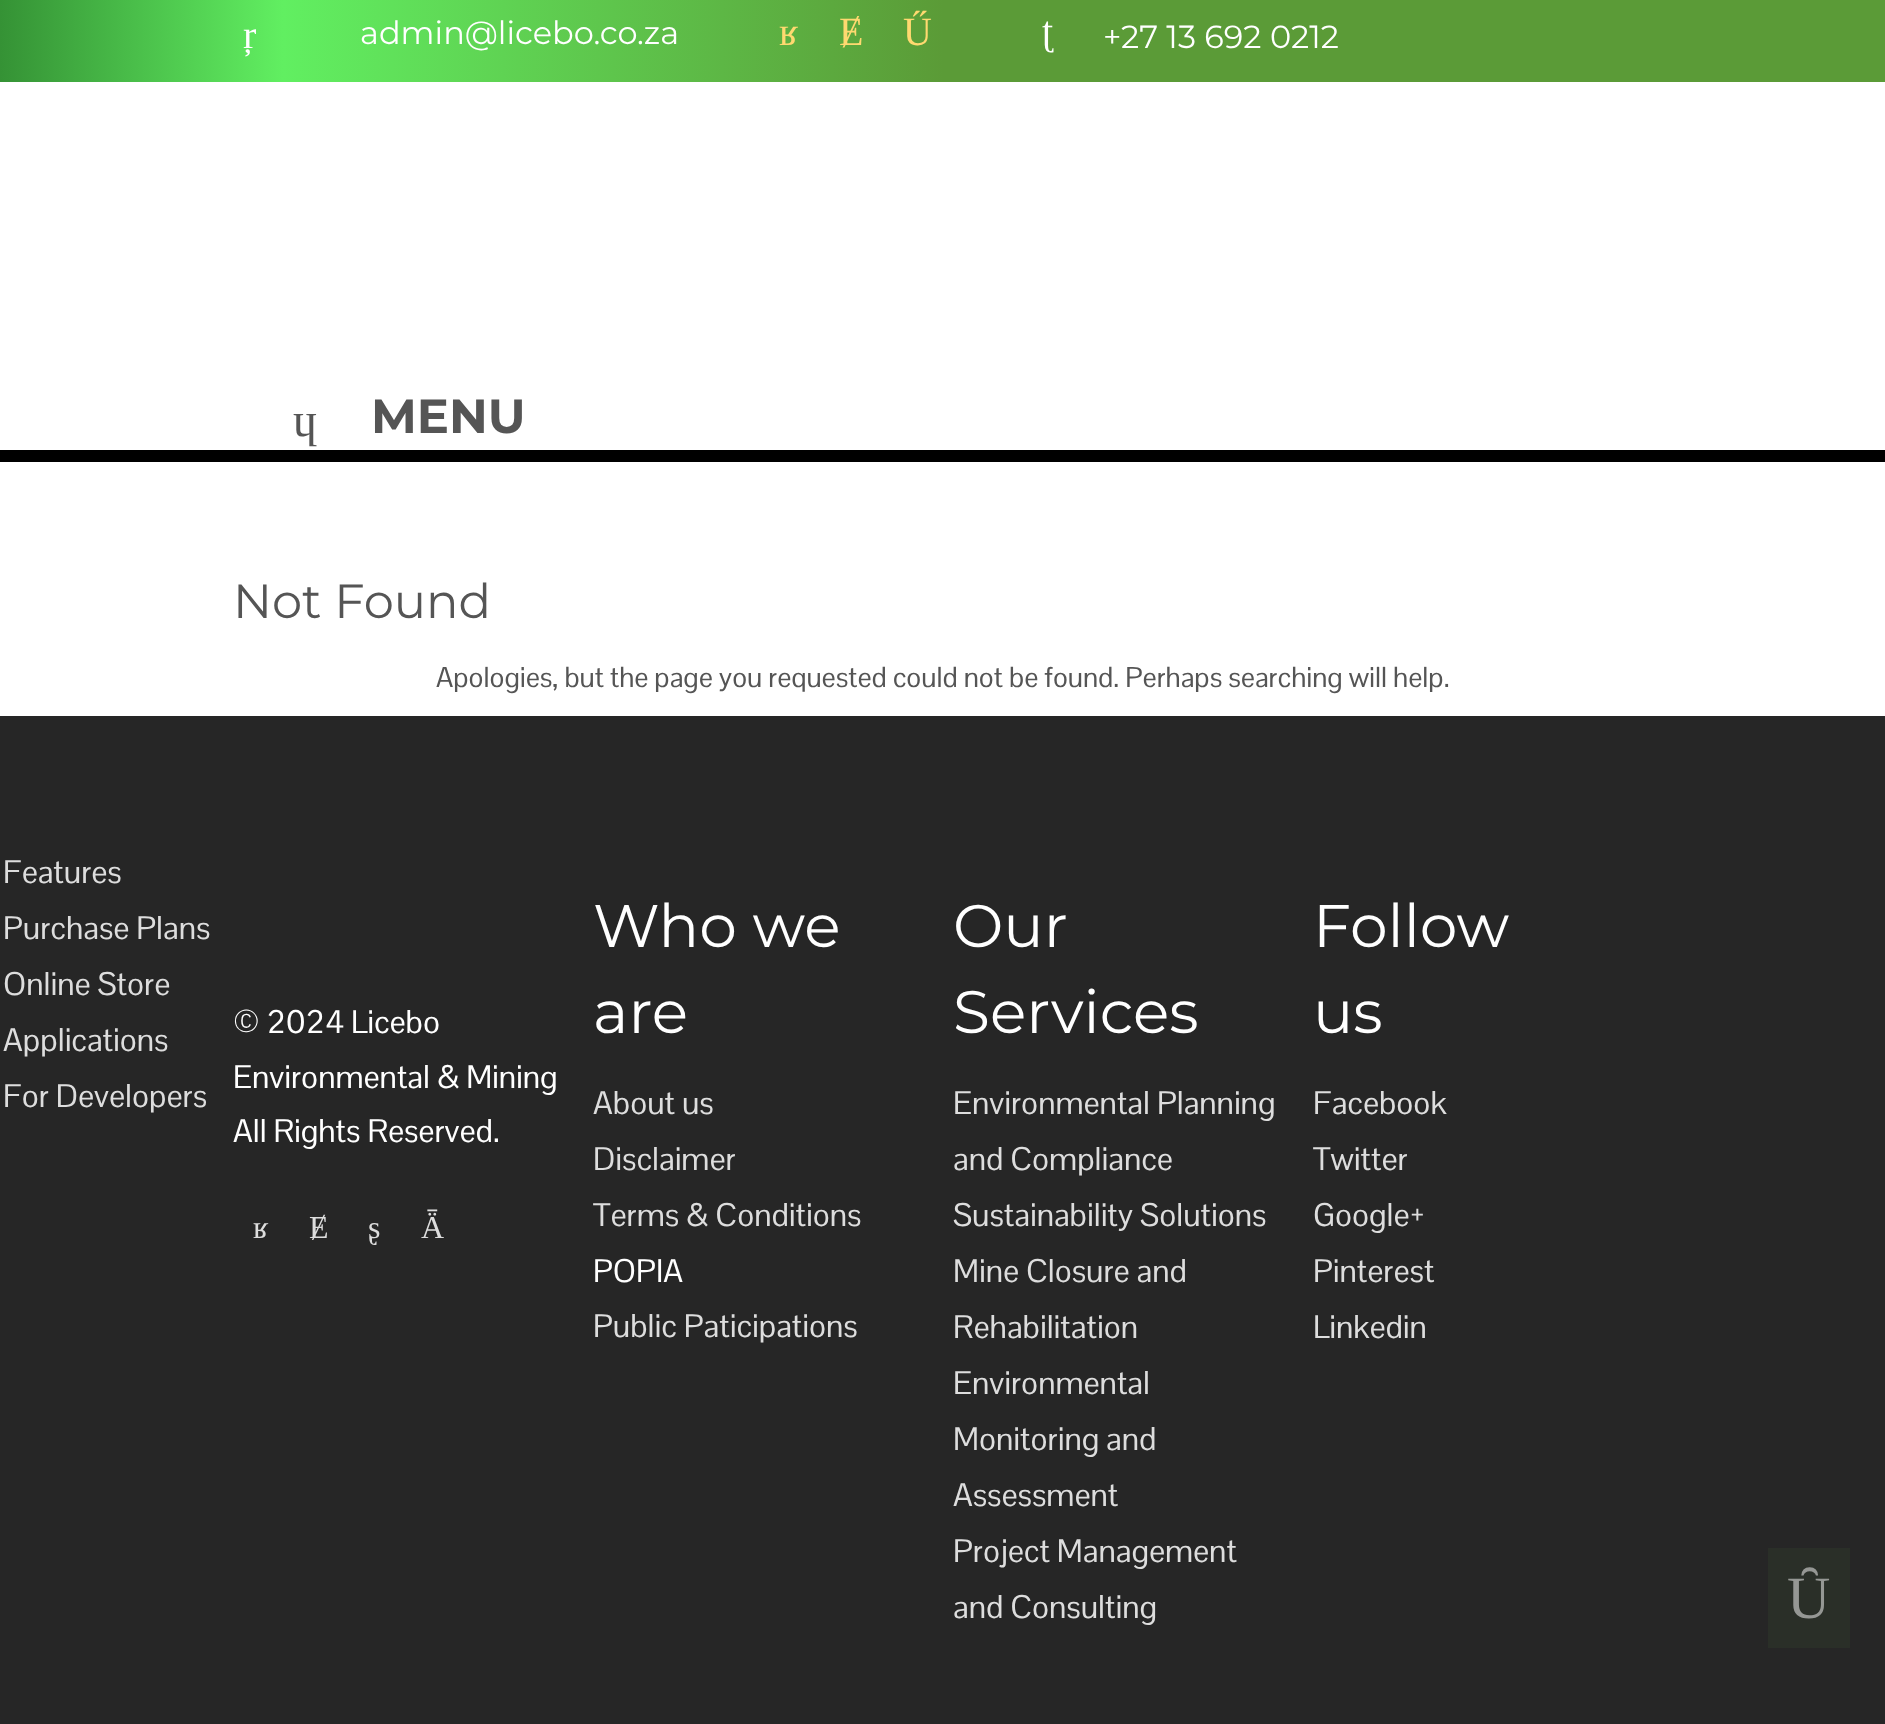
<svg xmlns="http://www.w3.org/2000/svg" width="1885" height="1724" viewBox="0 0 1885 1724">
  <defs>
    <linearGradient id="g1" gradientUnits="userSpaceOnUse" x1="0" y1="41" x2="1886" y2="41"><stop offset="0" stop-color="rgb(53,146,53)"/><stop offset="0.15" stop-color="rgb(97,239,97)"/><stop offset="0.5" stop-color="rgb(91,155,55)"/><stop offset="0.76" stop-color="rgb(91,155,55)"/></linearGradient>
  </defs>
  <rect width="100%" height="100%" fill="rgb(255,255,255)"/>
  <rect x="0" y="0" width="1885" height="82" fill="url(#g1)"/>
  <text x="243" y="48" font-family="Liberation Serif" font-size="40" fill="rgb(255,255,255)">ŗ</text>
  <text x="360" y="44" font-family="Montserrat" font-size="32" fill="rgb(255,255,255)">admin@licebo.co.za</text>
  <g font-family="Liberation Serif" font-size="40" fill="rgb(255,217,112)">
    <text x="779" y="45">ʁ</text>
    <text x="839" y="45">Ɇ</text>
    <text x="903" y="45">Ű</text>
  </g>
  <text x="1042" y="44" font-family="Liberation Serif" font-size="40" fill="rgb(255,255,255)">ʈ</text>
  <text x="1103" y="48" font-family="Montserrat" font-size="32" fill="rgb(255,255,255)">+27 13 692 0212</text>
  <rect x="0" y="450" width="1885" height="12" fill="rgb(0,0,0)"/>
  <text x="293" y="436" font-family="Liberation Serif" font-size="48" fill="rgb(85,85,85)">ɥ</text>
  <text x="371" y="433" font-family="Montserrat" font-size="48" font-weight="bold" fill="rgb(85,85,85)">MENU</text>
  <text x="233" y="618" font-family="Montserrat" font-size="48" fill="rgb(85,85,85)">Not Found</text>
  <text x="436" y="687" font-family="Pontano Sans" font-size="28" fill="rgb(85,85,85)">Apologies, but the page you requested could not be found. Perhaps searching will help.</text>
  <rect x="0" y="716" width="1885" height="1008" fill="rgb(38,38,38)"/>
  <g font-family="Pontano Sans" font-size="32" fill="rgb(221,221,221)">
    <text>
      <tspan x="3" y="883">Features</tspan>
      <tspan x="3" y="939">Purchase Plans</tspan>
      <tspan x="3" y="995">Online Store</tspan>
      <tspan x="3" y="1051">Applications</tspan>
      <tspan x="3" y="1107">For Developers</tspan>
    </text>
  </g>
  <g font-family="Montserrat" font-size="60" fill="rgb(255,255,255)">
    <text>
      <tspan x="953" y="947">Our</tspan>
      <tspan x="953" y="1033">Services</tspan>
    </text>
  </g>
  <g font-family="Pontano Sans" font-size="32" fill="rgb(221,221,221)">
    <text>
      <tspan x="953" y="1114">Environmental Planning</tspan>
      <tspan x="953" y="1170">and Compliance</tspan>
      <tspan x="953" y="1226">Sustainability Solutions</tspan>
      <tspan x="953" y="1282">Mine Closure and</tspan>
      <tspan x="953" y="1338">Rehabilitation</tspan>
      <tspan x="953" y="1394">Environmental</tspan>
      <tspan x="953" y="1450">Monitoring and</tspan>
      <tspan x="953" y="1506">Assessment</tspan>
      <tspan x="953" y="1562">Project Management</tspan>
      <tspan x="953" y="1618">and Consulting</tspan>
    </text>
  </g>
  <g font-family="Pontano Sans" font-size="32" fill="rgb(255,255,255)">
    <text>
      <tspan x="233" y="1033">© 2024 Licebo</tspan>
      <tspan x="233" y="1088">Environmental &amp; Mining</tspan>
      <tspan x="233" y="1142">All Rights Reserved.</tspan>
    </text>
  </g>
  <g font-family="Liberation Serif" font-size="32" fill="rgb(221,221,221)">
    <text x="253" y="1238">ʁ</text>
    <text x="309" y="1238">Ɇ</text>
    <text x="368" y="1238">ʂ</text>
    <text x="421" y="1238">Ǟ</text>
  </g>
  <g font-family="Montserrat" font-size="60" fill="rgb(255,255,255)">
    <text>
      <tspan x="593" y="947">Who we</tspan>
      <tspan x="593" y="1033">are</tspan>
    </text>
  </g>
  <g font-family="Pontano Sans" font-size="32" fill="rgb(221,221,221)">
    <text>
      <tspan x="593" y="1114">About us</tspan>
      <tspan x="593" y="1170">Disclaimer</tspan>
      <tspan x="593" y="1226">Terms &amp; Conditions</tspan>
    </text>
  </g>
  <text x="593" y="1282" font-family="Pontano Sans" font-size="32" fill="rgb(255,255,255)">POPIA</text>
  <text x="593" y="1337" font-family="Pontano Sans" font-size="32" fill="rgb(221,221,221)">Public Paticipations</text>
  <g font-family="Montserrat" font-size="60" fill="rgb(255,255,255)">
    <text>
      <tspan x="1313" y="947">Follow</tspan>
      <tspan x="1313" y="1033">us</tspan>
    </text>
  </g>
  <g font-family="Pontano Sans" font-size="32" fill="rgb(221,221,221)">
    <text>
      <tspan x="1313" y="1114">Facebook</tspan>
      <tspan x="1313" y="1170">Twitter</tspan>
      <tspan x="1313" y="1226">Google+</tspan>
      <tspan x="1313" y="1282">Pinterest</tspan>
      <tspan x="1313" y="1338">Linkedin</tspan>
    </text>
  </g>
  <rect x="1768" y="1548" width="82" height="100" fill="rgb(42,47,40)"/>
  <text x="1787" y="1618" font-family="Liberation Serif" font-size="60" fill="rgb(149,151,148)">Ȗ</text>
</svg>
